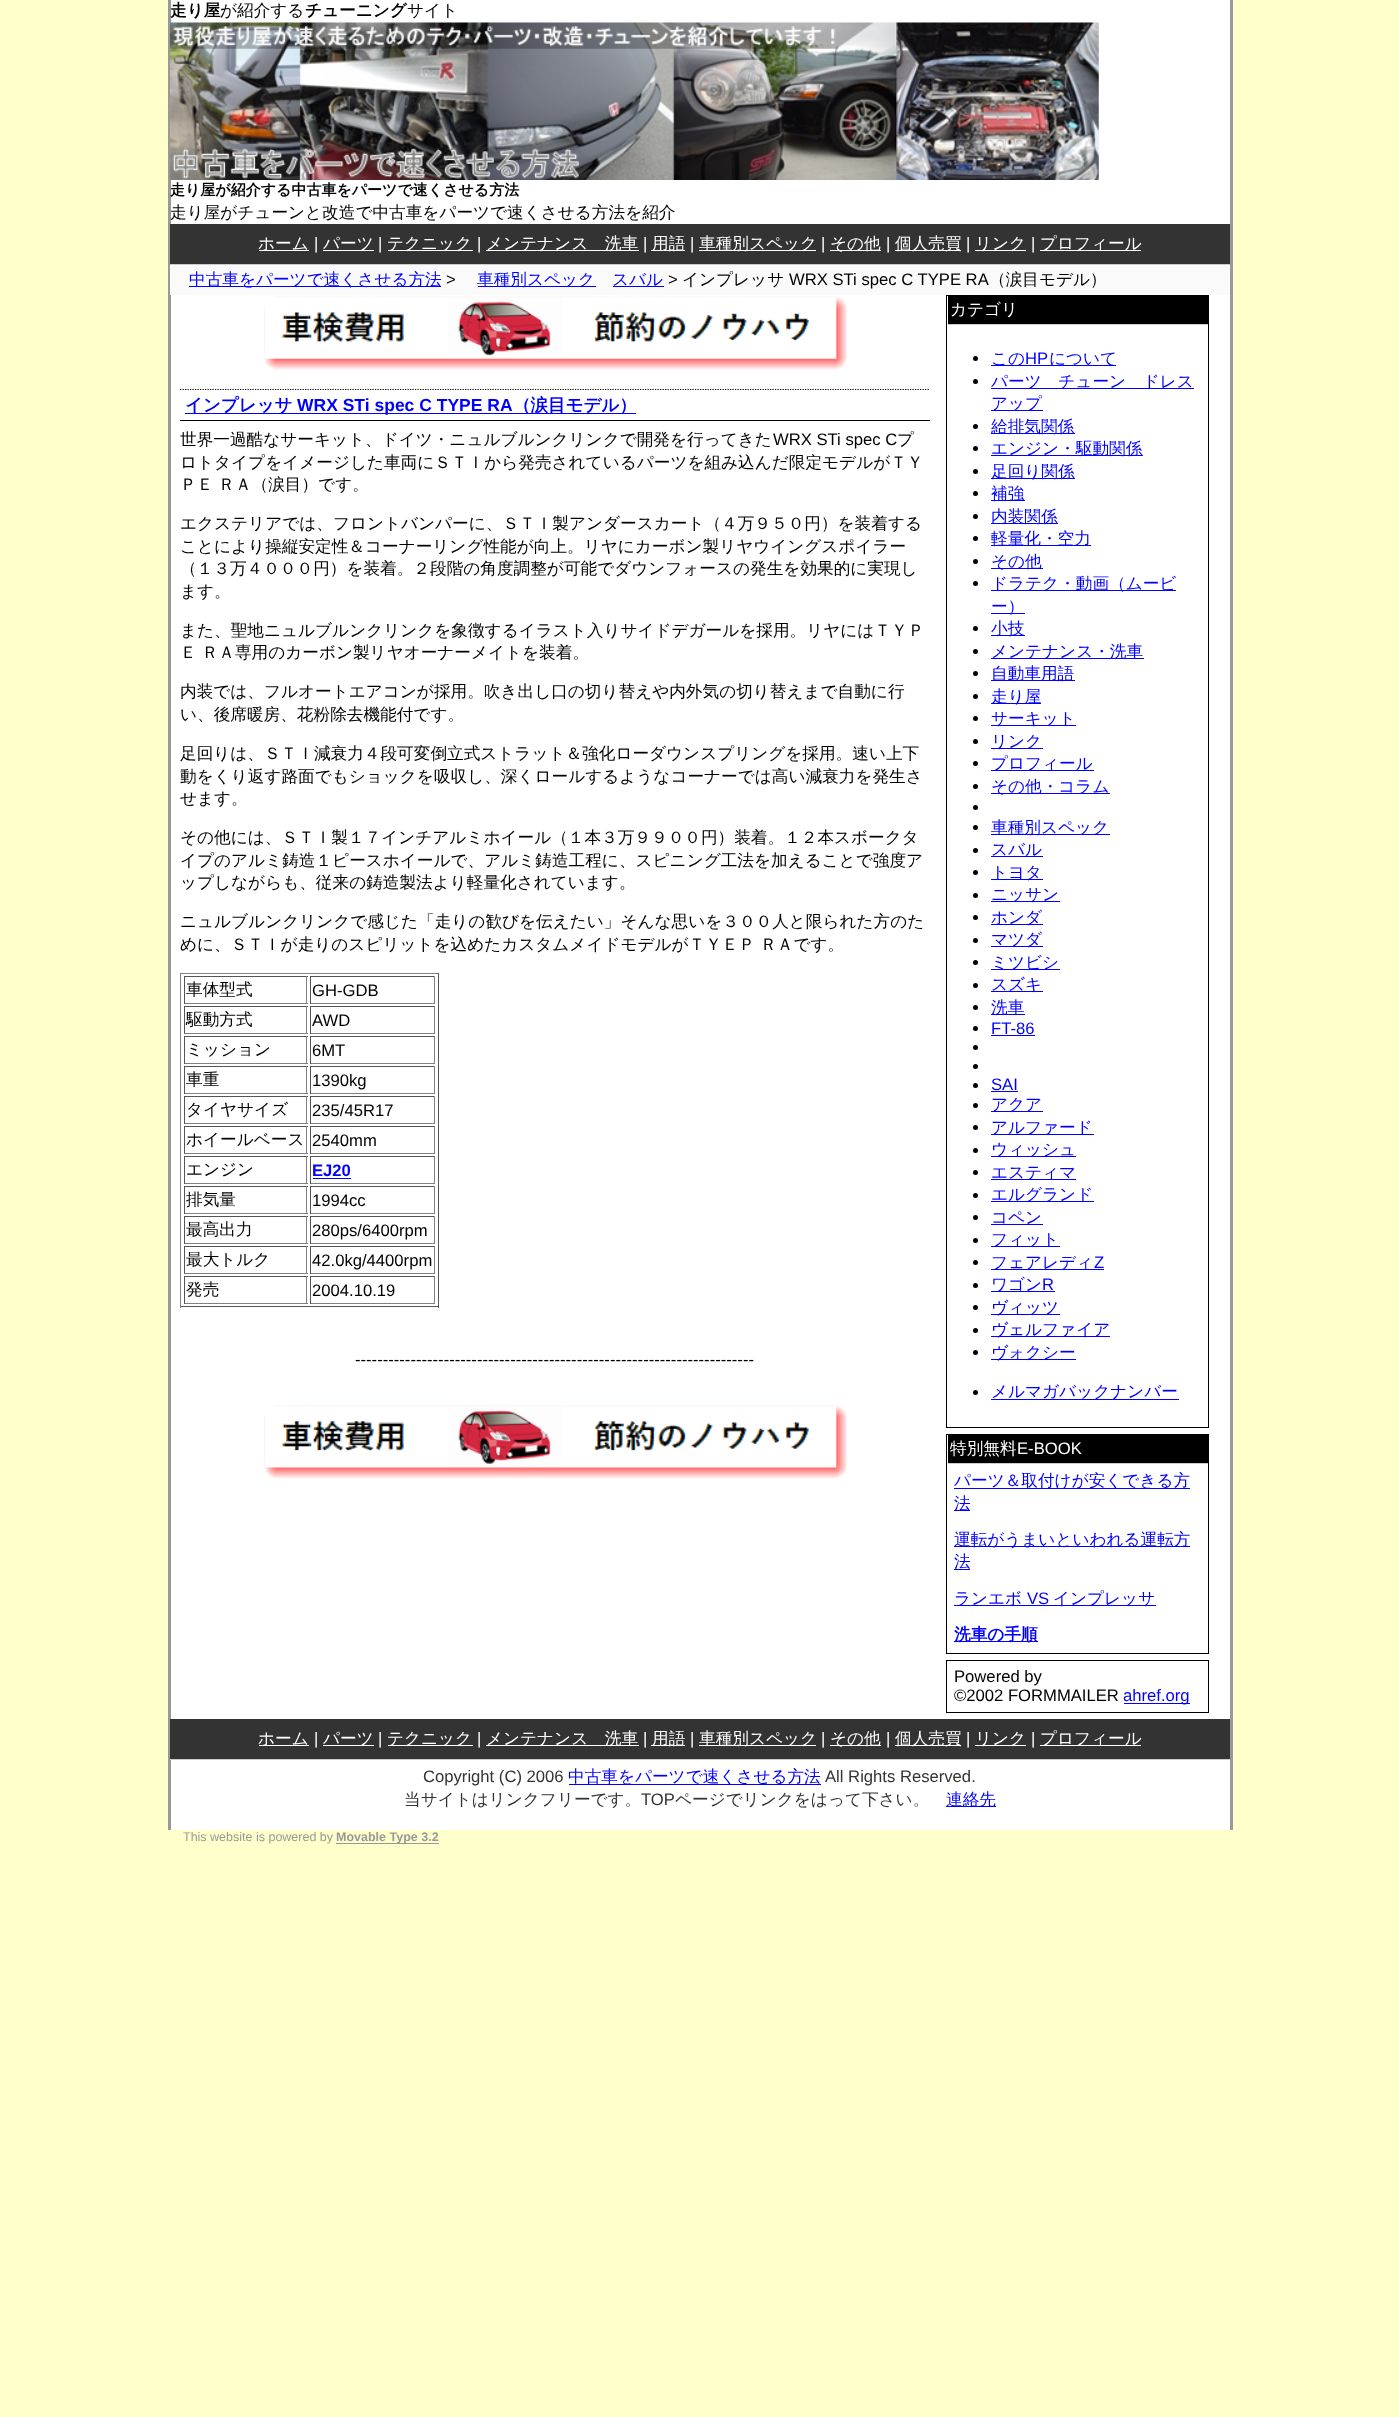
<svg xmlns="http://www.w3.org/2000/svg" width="1399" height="2417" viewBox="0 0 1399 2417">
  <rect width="100%" height="100%" fill="rgb(255,255,204)"/>
  <rect x="171" y="0" width="1059" height="1830" fill="rgb(255,255,255)"/>
  <rect x="1230" y="0" width="3" height="1830" fill="rgb(153,153,153)"/>
  <rect x="168" y="0" width="3" height="1830" fill="rgb(153,153,153)"/>
  <text x="170" y="16" font-family="WenQuanYi Zen Hei" font-size="16.65" font-weight="bold" fill="rgb(0,0,0)">走り屋</text>
  <text x="220" y="16" font-family="WenQuanYi Zen Hei" font-size="16.65" font-weight="500" fill="rgb(0,0,0)">が紹介する</text>
  <text x="305" y="16" font-family="WenQuanYi Zen Hei" font-size="16.65" font-weight="bold" fill="rgb(0,0,0)">チューニング</text>
  <text x="407" y="16" font-family="WenQuanYi Zen Hei" font-size="16.65" font-weight="500" fill="rgb(0,0,0)">サイト</text>
  <image x="170" y="22" width="929" height="158" href="pic1.png"/>
  <text x="170" y="195" font-family="WenQuanYi Zen Hei" font-size="15" font-weight="bold" fill="rgb(0,0,0)">走り屋が紹介する中古車をパーツで速くさせる方法</text>
  <text x="170" y="218" font-family="WenQuanYi Zen Hei" font-size="16.65" font-weight="500" fill="rgb(0,0,0)">走り屋がチューンと改造で中古車をパーツで速くさせる方法を紹介</text>
  <rect x="170" y="224" width="1060" height="40" fill="rgb(51,51,51)"/>
  <rect x="170" y="264" width="1060" height="1" fill="rgb(204,204,204)"/>
  <rect x="259" y="250" width="50" height="1" fill="rgb(255,255,255)"/>
  <text x="258" y="249" font-family="WenQuanYi Zen Hei" font-size="16.65" font-weight="500" fill="rgb(255,255,255)">ホーム</text>
  <text x="314" y="249" font-family="Liberation Sans" font-size="16.65" fill="rgb(255,255,255)">|</text>
  <rect x="323" y="250" width="51" height="1" fill="rgb(255,255,255)"/>
  <text x="323" y="249" font-family="WenQuanYi Zen Hei" font-size="16.65" font-weight="500" fill="rgb(255,255,255)">パーツ</text>
  <text x="378" y="249" font-family="Liberation Sans" font-size="16.65" fill="rgb(255,255,255)">|</text>
  <rect x="388" y="250" width="85" height="1" fill="rgb(255,255,255)"/>
  <text x="387" y="249" font-family="WenQuanYi Zen Hei" font-size="16.65" font-weight="500" fill="rgb(255,255,255)">テクニック</text>
  <text x="477" y="249" font-family="Liberation Sans" font-size="16.65" fill="rgb(255,255,255)">|</text>
  <rect x="486" y="250" width="153" height="1" fill="rgb(255,255,255)"/>
  <text x="486" y="249" font-family="WenQuanYi Zen Hei" font-size="16.65" font-weight="500" fill="rgb(255,255,255)">メンテナンス　洗車</text>
  <text x="643" y="249" font-family="Liberation Sans" font-size="16.65" fill="rgb(255,255,255)">|</text>
  <rect x="651" y="250" width="34" height="1" fill="rgb(255,255,255)"/>
  <text x="652" y="249" font-family="WenQuanYi Zen Hei" font-size="16.65" font-weight="500" fill="rgb(255,255,255)">用語</text>
  <text x="690" y="249" font-family="Liberation Sans" font-size="16.65" fill="rgb(255,255,255)">|</text>
  <rect x="699" y="250" width="117" height="1" fill="rgb(255,255,255)"/>
  <text x="699" y="249" font-family="WenQuanYi Zen Hei" font-size="16.65" font-weight="500" fill="rgb(255,255,255)">車種別スペック</text>
  <text x="821" y="249" font-family="Liberation Sans" font-size="16.65" fill="rgb(255,255,255)">|</text>
  <rect x="830" y="250" width="51" height="1" fill="rgb(255,255,255)"/>
  <text x="830" y="249" font-family="WenQuanYi Zen Hei" font-size="16.65" font-weight="500" fill="rgb(255,255,255)">その他</text>
  <text x="886" y="249" font-family="Liberation Sans" font-size="16.65" fill="rgb(255,255,255)">|</text>
  <rect x="895" y="250" width="66" height="1" fill="rgb(255,255,255)"/>
  <text x="895" y="249" font-family="WenQuanYi Zen Hei" font-size="16.65" font-weight="500" fill="rgb(255,255,255)">個人売買</text>
  <text x="966" y="249" font-family="Liberation Sans" font-size="16.65" fill="rgb(255,255,255)">|</text>
  <rect x="975" y="250" width="51" height="1" fill="rgb(255,255,255)"/>
  <text x="975" y="249" font-family="WenQuanYi Zen Hei" font-size="16.65" font-weight="500" fill="rgb(255,255,255)">リンク</text>
  <text x="1031" y="249" font-family="Liberation Sans" font-size="16.65" fill="rgb(255,255,255)">|</text>
  <rect x="1040" y="250" width="101" height="1" fill="rgb(255,255,255)"/>
  <text x="1040" y="249" font-family="WenQuanYi Zen Hei" font-size="16.65" font-weight="500" fill="rgb(255,255,255)">プロフィール</text>
  <rect x="170" y="265" width="1060" height="30" fill="rgb(250,250,250)"/>
  <rect x="189" y="286" width="252" height="1" fill="rgb(0,0,255)"/>
  <text x="189" y="285" font-family="WenQuanYi Zen Hei" font-size="16.65" font-weight="500" fill="rgb(0,0,255)">中古車をパーツで速くさせる方法</text>
  <text x="446" y="285" font-family="Liberation Sans" font-size="16.65" fill="rgb(0,0,0)">&gt;</text>
  <rect x="478" y="286" width="118" height="1" fill="rgb(0,0,255)"/>
  <text x="477" y="285" font-family="WenQuanYi Zen Hei" font-size="16.65" font-weight="500" fill="rgb(0,0,255)">車種別スペック</text>
  <rect x="613" y="286" width="51" height="1" fill="rgb(0,0,255)"/>
  <text x="612" y="285" font-family="WenQuanYi Zen Hei" font-size="16.65" font-weight="500" fill="rgb(0,0,255)">スバル</text>
  <text x="668" y="285" font-family="Liberation Sans" font-size="16.65" fill="rgb(0,0,0)">&gt;</text>
  <text x="682" y="285" font-family="WenQuanYi Zen Hei" font-size="16.65" font-weight="500" fill="rgb(0,0,0)">インプレッサ</text>
  <text x="789" y="285" font-family="Liberation Sans" font-size="16.65" fill="rgb(0,0,0)">WRX STi spec C TYPE RA</text>
  <text x="989" y="285" font-family="WenQuanYi Zen Hei" font-size="16.65" font-weight="500" fill="rgb(0,0,0)">（涙目モデル）</text>
  <image x="264" y="296" width="584" height="74" href="pic2.png"/>
  <path d="M180 389.5H930" fill="none" stroke="rgb(0,0,0)" stroke-width="1.2" stroke-dasharray="1.25 1.25"/>
  <rect x="180" y="420" width="750" height="1" fill="rgb(0,0,0)"/>
  <rect x="185" y="413" width="451" height="1" fill="rgb(0,0,255)"/>
  <text x="185" y="411" font-family="WenQuanYi Zen Hei" font-size="17.5" font-weight="bold" fill="rgb(0,0,255)">インプレッサ</text>
  <text x="297" y="411" font-family="Liberation Sans" font-size="17.5" font-weight="bold" fill="rgb(0,0,255)">WRX STi spec C TYPE RA</text>
  <text x="513" y="411" font-family="WenQuanYi Zen Hei" font-size="17.5" font-weight="bold" fill="rgb(0,0,255)">（涙目モデル）</text>
  <text x="180" y="445" font-family="WenQuanYi Zen Hei" font-size="16.65" font-weight="500" fill="rgb(0,0,0)">世界一過酷なサーキット、ドイツ・ニュルブルンクリンクで開発を行ってきた</text>
  <text x="773" y="445" font-family="Liberation Sans" font-size="16.65" fill="rgb(0,0,0)">WRX STi spec C</text>
  <g font-family="WenQuanYi Zen Hei" font-size="16.65" font-weight="500" fill="rgb(0,0,0)">
    <text x="897" y="445">プ</text>
    <text>
      <tspan x="180" y="468">ロトタイプをイメージした車両にＳＴＩから発売されているパーツを組み込んだ限定モデルがＴＹ</tspan>
      <tspan x="180" y="490">ＰＥ ＲＡ（涙目）です。</tspan>
    </text>
    <text>
      <tspan x="180" y="529">エクステリアでは、フロントバンパーに、ＳＴＩ製アンダースカート（４万９５０円）を装着する</tspan>
      <tspan x="180" y="552">ことにより操縦安定性＆コーナーリング性能が向上。リヤにカーボン製リヤウイングスポイラー</tspan>
      <tspan x="180" y="574">（１３万４０００円）を装着。２段階の角度調整が可能でダウンフォースの発生を効果的に実現し</tspan>
      <tspan x="180" y="597">ます。</tspan>
    </text>
    <text>
      <tspan x="180" y="636">また、聖地ニュルブルンクリンクを象徴するイラスト入りサイドデガールを採用。リヤにはＴＹＰ</tspan>
      <tspan x="180" y="658">Ｅ ＲＡ専用のカーボン製リヤオーナーメイトを装着。</tspan>
    </text>
    <text>
      <tspan x="180" y="697">内装では、フルオートエアコンが採用。吹き出し口の切り替えや内外気の切り替えまで自動に行</tspan>
      <tspan x="180" y="720">い、後席暖房、花粉除去機能付です。</tspan>
    </text>
    <text>
      <tspan x="180" y="759">足回りは、ＳＴＩ減衰力４段可変倒立式ストラット＆強化ローダウンスプリングを採用。速い上下</tspan>
      <tspan x="180" y="782">動をくり返す路面でもショックを吸収し、深くロールするようなコーナーでは高い減衰力を発生さ</tspan>
      <tspan x="180" y="804">せます。</tspan>
    </text>
    <text>
      <tspan x="180" y="843">その他には、ＳＴＩ製１７インチアルミホイール（１本３万９９００円）装着。１２本スボークタ</tspan>
      <tspan x="180" y="866">イプのアルミ鋳造１ピースホイールで、アルミ鋳造工程に、スピニング工法を加えることで強度ア</tspan>
      <tspan x="180" y="888">ップしながらも、従来の鋳造製法より軽量化されています。</tspan>
    </text>
    <text>
      <tspan x="180" y="927">ニュルブルンクリンクで感じた「走りの歓びを伝えたい」そんな思いを３００人と限られた方のた</tspan>
      <tspan x="180" y="950">めに、ＳＴＩが走りのスピリットを込めたカスタムメイドモデルがＴＹＥＰ ＲＡです。</tspan>
    </text>
  </g>
  <rect x="180" y="973" width="259" height="1" fill="rgb(128,128,128)"/>
  <rect x="438" y="973" width="1" height="335" fill="rgb(85,85,85)"/>
  <rect x="180" y="1306" width="259" height="1" fill="rgb(85,85,85)"/>
  <rect x="180" y="973" width="1" height="335" fill="rgb(128,128,128)"/>
  <rect x="184" y="976" width="124" height="1" fill="rgb(85,85,85)"/>
  <rect x="306" y="976" width="1" height="28" fill="rgb(128,128,128)"/>
  <rect x="184" y="1003" width="124" height="1" fill="rgb(128,128,128)"/>
  <rect x="184" y="976" width="1" height="28" fill="rgb(85,85,85)"/>
  <text x="186" y="995" font-family="WenQuanYi Zen Hei" font-size="16.65" font-weight="500" fill="rgb(0,0,0)">車体型式</text>
  <rect x="310" y="976" width="125" height="1" fill="rgb(85,85,85)"/>
  <rect x="434" y="976" width="1" height="28" fill="rgb(128,128,128)"/>
  <rect x="310" y="1003" width="125" height="1" fill="rgb(128,128,128)"/>
  <rect x="310" y="976" width="1" height="28" fill="rgb(85,85,85)"/>
  <text x="312" y="996" font-family="Liberation Sans" font-size="16.65" fill="rgb(0,0,0)">GH-GDB</text>
  <rect x="184" y="1006" width="124" height="1" fill="rgb(85,85,85)"/>
  <rect x="306" y="1006" width="1" height="28" fill="rgb(128,128,128)"/>
  <rect x="184" y="1033" width="124" height="1" fill="rgb(128,128,128)"/>
  <rect x="184" y="1006" width="1" height="28" fill="rgb(85,85,85)"/>
  <text x="186" y="1025" font-family="WenQuanYi Zen Hei" font-size="16.65" font-weight="500" fill="rgb(0,0,0)">駆動方式</text>
  <rect x="310" y="1006" width="125" height="1" fill="rgb(85,85,85)"/>
  <rect x="434" y="1006" width="1" height="28" fill="rgb(128,128,128)"/>
  <rect x="310" y="1033" width="125" height="1" fill="rgb(128,128,128)"/>
  <rect x="310" y="1006" width="1" height="28" fill="rgb(85,85,85)"/>
  <text x="312" y="1026" font-family="Liberation Sans" font-size="16.65" fill="rgb(0,0,0)">AWD</text>
  <rect x="184" y="1036" width="124" height="1" fill="rgb(85,85,85)"/>
  <rect x="306" y="1036" width="1" height="28" fill="rgb(128,128,128)"/>
  <rect x="184" y="1063" width="124" height="1" fill="rgb(128,128,128)"/>
  <rect x="184" y="1036" width="1" height="28" fill="rgb(85,85,85)"/>
  <text x="186" y="1055" font-family="WenQuanYi Zen Hei" font-size="16.65" font-weight="500" fill="rgb(0,0,0)">ミッション</text>
  <rect x="310" y="1036" width="125" height="1" fill="rgb(85,85,85)"/>
  <rect x="434" y="1036" width="1" height="28" fill="rgb(128,128,128)"/>
  <rect x="310" y="1063" width="125" height="1" fill="rgb(128,128,128)"/>
  <rect x="310" y="1036" width="1" height="28" fill="rgb(85,85,85)"/>
  <text x="312" y="1056" font-family="Liberation Sans" font-size="16.65" fill="rgb(0,0,0)">6MT</text>
  <rect x="184" y="1066" width="124" height="1" fill="rgb(85,85,85)"/>
  <rect x="306" y="1066" width="1" height="28" fill="rgb(128,128,128)"/>
  <rect x="184" y="1093" width="124" height="1" fill="rgb(128,128,128)"/>
  <rect x="184" y="1066" width="1" height="28" fill="rgb(85,85,85)"/>
  <text x="186" y="1085" font-family="WenQuanYi Zen Hei" font-size="16.65" font-weight="500" fill="rgb(0,0,0)">車重</text>
  <rect x="310" y="1066" width="125" height="1" fill="rgb(85,85,85)"/>
  <rect x="434" y="1066" width="1" height="28" fill="rgb(128,128,128)"/>
  <rect x="310" y="1093" width="125" height="1" fill="rgb(128,128,128)"/>
  <rect x="310" y="1066" width="1" height="28" fill="rgb(85,85,85)"/>
  <text x="312" y="1086" font-family="Liberation Sans" font-size="16.65" fill="rgb(0,0,0)">1390kg</text>
  <rect x="184" y="1096" width="124" height="1" fill="rgb(85,85,85)"/>
  <rect x="306" y="1096" width="1" height="28" fill="rgb(128,128,128)"/>
  <rect x="184" y="1123" width="124" height="1" fill="rgb(128,128,128)"/>
  <rect x="184" y="1096" width="1" height="28" fill="rgb(85,85,85)"/>
  <text x="186" y="1115" font-family="WenQuanYi Zen Hei" font-size="16.65" font-weight="500" fill="rgb(0,0,0)">タイヤサイズ</text>
  <rect x="310" y="1096" width="125" height="1" fill="rgb(85,85,85)"/>
  <rect x="434" y="1096" width="1" height="28" fill="rgb(128,128,128)"/>
  <rect x="310" y="1123" width="125" height="1" fill="rgb(128,128,128)"/>
  <rect x="310" y="1096" width="1" height="28" fill="rgb(85,85,85)"/>
  <text x="312" y="1116" font-family="Liberation Sans" font-size="16.65" fill="rgb(0,0,0)">235/45R17</text>
  <rect x="184" y="1126" width="124" height="1" fill="rgb(85,85,85)"/>
  <rect x="306" y="1126" width="1" height="28" fill="rgb(128,128,128)"/>
  <rect x="184" y="1153" width="124" height="1" fill="rgb(128,128,128)"/>
  <rect x="184" y="1126" width="1" height="28" fill="rgb(85,85,85)"/>
  <text x="186" y="1145" font-family="WenQuanYi Zen Hei" font-size="16.65" font-weight="500" fill="rgb(0,0,0)">ホイールベース</text>
  <rect x="310" y="1126" width="125" height="1" fill="rgb(85,85,85)"/>
  <rect x="434" y="1126" width="1" height="28" fill="rgb(128,128,128)"/>
  <rect x="310" y="1153" width="125" height="1" fill="rgb(128,128,128)"/>
  <rect x="310" y="1126" width="1" height="28" fill="rgb(85,85,85)"/>
  <text x="312" y="1146" font-family="Liberation Sans" font-size="16.65" fill="rgb(0,0,0)">2540mm</text>
  <rect x="184" y="1156" width="124" height="1" fill="rgb(85,85,85)"/>
  <rect x="306" y="1156" width="1" height="28" fill="rgb(128,128,128)"/>
  <rect x="184" y="1183" width="124" height="1" fill="rgb(128,128,128)"/>
  <rect x="184" y="1156" width="1" height="28" fill="rgb(85,85,85)"/>
  <text x="186" y="1175" font-family="WenQuanYi Zen Hei" font-size="16.65" font-weight="500" fill="rgb(0,0,0)">エンジン</text>
  <rect x="310" y="1156" width="125" height="1" fill="rgb(85,85,85)"/>
  <rect x="434" y="1156" width="1" height="28" fill="rgb(128,128,128)"/>
  <rect x="310" y="1183" width="125" height="1" fill="rgb(128,128,128)"/>
  <rect x="310" y="1156" width="1" height="28" fill="rgb(85,85,85)"/>
  <text x="312" y="1176" font-family="Liberation Sans" font-size="16.65" font-weight="bold" fill="rgb(0,0,255)">EJ20</text>
  <rect x="313" y="1178" width="38" height="1" fill="rgb(0,0,255)"/>
  <rect x="184" y="1186" width="124" height="1" fill="rgb(85,85,85)"/>
  <rect x="306" y="1186" width="1" height="28" fill="rgb(128,128,128)"/>
  <rect x="184" y="1213" width="124" height="1" fill="rgb(128,128,128)"/>
  <rect x="184" y="1186" width="1" height="28" fill="rgb(85,85,85)"/>
  <text x="186" y="1205" font-family="WenQuanYi Zen Hei" font-size="16.65" font-weight="500" fill="rgb(0,0,0)">排気量</text>
  <rect x="310" y="1186" width="125" height="1" fill="rgb(85,85,85)"/>
  <rect x="434" y="1186" width="1" height="28" fill="rgb(128,128,128)"/>
  <rect x="310" y="1213" width="125" height="1" fill="rgb(128,128,128)"/>
  <rect x="310" y="1186" width="1" height="28" fill="rgb(85,85,85)"/>
  <text x="312" y="1206" font-family="Liberation Sans" font-size="16.65" fill="rgb(0,0,0)">1994cc</text>
  <rect x="184" y="1216" width="124" height="1" fill="rgb(85,85,85)"/>
  <rect x="306" y="1216" width="1" height="28" fill="rgb(128,128,128)"/>
  <rect x="184" y="1243" width="124" height="1" fill="rgb(128,128,128)"/>
  <rect x="184" y="1216" width="1" height="28" fill="rgb(85,85,85)"/>
  <text x="186" y="1235" font-family="WenQuanYi Zen Hei" font-size="16.65" font-weight="500" fill="rgb(0,0,0)">最高出力</text>
  <rect x="310" y="1216" width="125" height="1" fill="rgb(85,85,85)"/>
  <rect x="434" y="1216" width="1" height="28" fill="rgb(128,128,128)"/>
  <rect x="310" y="1243" width="125" height="1" fill="rgb(128,128,128)"/>
  <rect x="310" y="1216" width="1" height="28" fill="rgb(85,85,85)"/>
  <text x="312" y="1236" font-family="Liberation Sans" font-size="16.65" fill="rgb(0,0,0)">280ps/6400rpm</text>
  <rect x="184" y="1246" width="124" height="1" fill="rgb(85,85,85)"/>
  <rect x="306" y="1246" width="1" height="28" fill="rgb(128,128,128)"/>
  <rect x="184" y="1273" width="124" height="1" fill="rgb(128,128,128)"/>
  <rect x="184" y="1246" width="1" height="28" fill="rgb(85,85,85)"/>
  <text x="186" y="1265" font-family="WenQuanYi Zen Hei" font-size="16.65" font-weight="500" fill="rgb(0,0,0)">最大トルク</text>
  <rect x="310" y="1246" width="125" height="1" fill="rgb(85,85,85)"/>
  <rect x="434" y="1246" width="1" height="28" fill="rgb(128,128,128)"/>
  <rect x="310" y="1273" width="125" height="1" fill="rgb(128,128,128)"/>
  <rect x="310" y="1246" width="1" height="28" fill="rgb(85,85,85)"/>
  <text x="312" y="1266" font-family="Liberation Sans" font-size="16.65" fill="rgb(0,0,0)">42.0kg/4400rpm</text>
  <rect x="184" y="1276" width="124" height="1" fill="rgb(85,85,85)"/>
  <rect x="306" y="1276" width="1" height="28" fill="rgb(128,128,128)"/>
  <rect x="184" y="1303" width="124" height="1" fill="rgb(128,128,128)"/>
  <rect x="184" y="1276" width="1" height="28" fill="rgb(85,85,85)"/>
  <text x="186" y="1295" font-family="WenQuanYi Zen Hei" font-size="16.65" font-weight="500" fill="rgb(0,0,0)">発売</text>
  <rect x="310" y="1276" width="125" height="1" fill="rgb(85,85,85)"/>
  <rect x="434" y="1276" width="1" height="28" fill="rgb(128,128,128)"/>
  <rect x="310" y="1303" width="125" height="1" fill="rgb(128,128,128)"/>
  <rect x="310" y="1276" width="1" height="28" fill="rgb(85,85,85)"/>
  <g font-family="Liberation Sans" font-size="16.65" fill="rgb(0,0,0)">
    <text x="312" y="1296">2004.10.19</text>
    <text x="355" y="1365">------------------------------------------------------------------------</text>
  </g>
  <image x="264" y="1405" width="584" height="74" href="pic3.png"/>
  <rect x="946.5" y="295.5" width="262" height="1132" fill="none" stroke="rgb(0,0,0)"/>
  <rect x="948" y="296" width="260" height="28" fill="rgb(0,0,0)"/>
  <rect x="948" y="324" width="260" height="1" fill="rgb(204,204,204)"/>
  <text x="950" y="315" font-family="WenQuanYi Zen Hei" font-size="16.65" font-weight="500" fill="rgb(255,255,255)">カテゴリ</text>
  <circle cx="975.5" cy="358.5" r="2.5" fill="rgb(0,0,0)"/>
  <rect x="991" y="365" width="125" height="1" fill="rgb(0,0,255)"/>
  <text x="991" y="364" font-family="WenQuanYi Zen Hei" font-size="16.65" font-weight="500" fill="rgb(0,0,255)">この</text>
  <text x="1025" y="364" font-family="Liberation Sans" font-size="16.65" fill="rgb(0,0,255)">HP</text>
  <text x="1049" y="364" font-family="WenQuanYi Zen Hei" font-size="16.65" font-weight="500" fill="rgb(0,0,255)">について</text>
  <circle cx="975.5" cy="381.5" r="2.5" fill="rgb(0,0,0)"/>
  <rect x="991" y="388" width="203" height="1" fill="rgb(0,0,255)"/>
  <text x="991" y="387" font-family="WenQuanYi Zen Hei" font-size="16.65" font-weight="500" fill="rgb(0,0,255)">パーツ　チューン　ドレス</text>
  <rect x="991" y="410" width="52" height="1" fill="rgb(0,0,255)"/>
  <text x="991" y="409" font-family="WenQuanYi Zen Hei" font-size="16.65" font-weight="500" fill="rgb(0,0,255)">アップ</text>
  <circle cx="975.5" cy="426.5" r="2.5" fill="rgb(0,0,0)"/>
  <rect x="991" y="433" width="84" height="1" fill="rgb(0,0,255)"/>
  <text x="991" y="432" font-family="WenQuanYi Zen Hei" font-size="16.65" font-weight="500" fill="rgb(0,0,255)">給排気関係</text>
  <circle cx="975.5" cy="448.5" r="2.5" fill="rgb(0,0,0)"/>
  <rect x="991" y="455" width="152" height="1" fill="rgb(0,0,255)"/>
  <text x="991" y="454" font-family="WenQuanYi Zen Hei" font-size="16.65" font-weight="500" fill="rgb(0,0,255)">エンジン・駆動関係</text>
  <circle cx="975.5" cy="471.5" r="2.5" fill="rgb(0,0,0)"/>
  <rect x="991" y="478" width="84" height="1" fill="rgb(0,0,255)"/>
  <text x="991" y="477" font-family="WenQuanYi Zen Hei" font-size="16.65" font-weight="500" fill="rgb(0,0,255)">足回り関係</text>
  <circle cx="975.5" cy="493.5" r="2.5" fill="rgb(0,0,0)"/>
  <rect x="991" y="500" width="34" height="1" fill="rgb(0,0,255)"/>
  <text x="991" y="499" font-family="WenQuanYi Zen Hei" font-size="16.65" font-weight="500" fill="rgb(0,0,255)">補強</text>
  <circle cx="975.5" cy="516.5" r="2.5" fill="rgb(0,0,0)"/>
  <rect x="991" y="523" width="67" height="1" fill="rgb(0,0,255)"/>
  <text x="991" y="522" font-family="WenQuanYi Zen Hei" font-size="16.65" font-weight="500" fill="rgb(0,0,255)">内装関係</text>
  <circle cx="975.5" cy="538.5" r="2.5" fill="rgb(0,0,0)"/>
  <rect x="991" y="545" width="100" height="1" fill="rgb(0,0,255)"/>
  <text x="991" y="544" font-family="WenQuanYi Zen Hei" font-size="16.65" font-weight="500" fill="rgb(0,0,255)">軽量化・空力</text>
  <circle cx="975.5" cy="561.5" r="2.5" fill="rgb(0,0,0)"/>
  <rect x="991" y="568" width="52" height="1" fill="rgb(0,0,255)"/>
  <text x="991" y="567" font-family="WenQuanYi Zen Hei" font-size="16.65" font-weight="500" fill="rgb(0,0,255)">その他</text>
  <circle cx="975.5" cy="583.5" r="2.5" fill="rgb(0,0,0)"/>
  <rect x="991" y="590" width="185" height="1" fill="rgb(0,0,255)"/>
  <text x="991" y="589" font-family="WenQuanYi Zen Hei" font-size="16.65" font-weight="500" fill="rgb(0,0,255)">ドラテク・動画（ムービ</text>
  <rect x="991" y="613" width="34" height="1" fill="rgb(0,0,255)"/>
  <text x="991" y="612" font-family="WenQuanYi Zen Hei" font-size="16.65" font-weight="500" fill="rgb(0,0,255)">ー）</text>
  <circle cx="975.5" cy="628.5" r="2.5" fill="rgb(0,0,0)"/>
  <rect x="991" y="635" width="34" height="1" fill="rgb(0,0,255)"/>
  <text x="991" y="634" font-family="WenQuanYi Zen Hei" font-size="16.65" font-weight="500" fill="rgb(0,0,255)">小技</text>
  <circle cx="975.5" cy="651.5" r="2.5" fill="rgb(0,0,0)"/>
  <rect x="991" y="658" width="153" height="1" fill="rgb(0,0,255)"/>
  <text x="991" y="657" font-family="WenQuanYi Zen Hei" font-size="16.65" font-weight="500" fill="rgb(0,0,255)">メンテナンス・洗車</text>
  <circle cx="975.5" cy="673.5" r="2.5" fill="rgb(0,0,0)"/>
  <rect x="991" y="680" width="84" height="1" fill="rgb(0,0,255)"/>
  <text x="991" y="679" font-family="WenQuanYi Zen Hei" font-size="16.65" font-weight="500" fill="rgb(0,0,255)">自動車用語</text>
  <circle cx="975.5" cy="696.5" r="2.5" fill="rgb(0,0,0)"/>
  <rect x="991" y="703" width="50" height="1" fill="rgb(0,0,255)"/>
  <text x="991" y="702" font-family="WenQuanYi Zen Hei" font-size="16.65" font-weight="500" fill="rgb(0,0,255)">走り屋</text>
  <circle cx="975.5" cy="718.5" r="2.5" fill="rgb(0,0,0)"/>
  <rect x="991" y="725" width="85" height="1" fill="rgb(0,0,255)"/>
  <text x="991" y="724" font-family="WenQuanYi Zen Hei" font-size="16.65" font-weight="500" fill="rgb(0,0,255)">サーキット</text>
  <circle cx="975.5" cy="741.5" r="2.5" fill="rgb(0,0,0)"/>
  <rect x="991" y="748" width="52" height="1" fill="rgb(0,0,255)"/>
  <text x="991" y="747" font-family="WenQuanYi Zen Hei" font-size="16.65" font-weight="500" fill="rgb(0,0,255)">リンク</text>
  <circle cx="975.5" cy="763.5" r="2.5" fill="rgb(0,0,0)"/>
  <rect x="991" y="770" width="103" height="1" fill="rgb(0,0,255)"/>
  <text x="991" y="769" font-family="WenQuanYi Zen Hei" font-size="16.65" font-weight="500" fill="rgb(0,0,255)">プロフィール</text>
  <circle cx="975.5" cy="786.5" r="2.5" fill="rgb(0,0,0)"/>
  <rect x="991" y="793" width="119" height="1" fill="rgb(0,0,255)"/>
  <text x="991" y="792" font-family="WenQuanYi Zen Hei" font-size="16.65" font-weight="500" fill="rgb(0,0,255)">その他・コラム</text>
  <circle cx="975.5" cy="807.5" r="2.5" fill="rgb(0,0,0)"/>
  <circle cx="975.5" cy="827.5" r="2.5" fill="rgb(0,0,0)"/>
  <rect x="991" y="834" width="119" height="1" fill="rgb(0,0,255)"/>
  <text x="991" y="833" font-family="WenQuanYi Zen Hei" font-size="16.65" font-weight="500" fill="rgb(0,0,255)">車種別スペック</text>
  <circle cx="975.5" cy="850.5" r="2.5" fill="rgb(0,0,0)"/>
  <rect x="991" y="856" width="52" height="1" fill="rgb(0,0,255)"/>
  <text x="991" y="855" font-family="WenQuanYi Zen Hei" font-size="16.65" font-weight="500" fill="rgb(0,0,255)">スバル</text>
  <circle cx="975.5" cy="872.5" r="2.5" fill="rgb(0,0,0)"/>
  <rect x="991" y="879" width="52" height="1" fill="rgb(0,0,255)"/>
  <text x="991" y="878" font-family="WenQuanYi Zen Hei" font-size="16.65" font-weight="500" fill="rgb(0,0,255)">トヨタ</text>
  <circle cx="975.5" cy="895.5" r="2.5" fill="rgb(0,0,0)"/>
  <rect x="991" y="901" width="69" height="1" fill="rgb(0,0,255)"/>
  <text x="991" y="900" font-family="WenQuanYi Zen Hei" font-size="16.65" font-weight="500" fill="rgb(0,0,255)">ニッサン</text>
  <circle cx="975.5" cy="917.5" r="2.5" fill="rgb(0,0,0)"/>
  <rect x="991" y="924" width="52" height="1" fill="rgb(0,0,255)"/>
  <text x="991" y="923" font-family="WenQuanYi Zen Hei" font-size="16.65" font-weight="500" fill="rgb(0,0,255)">ホンダ</text>
  <circle cx="975.5" cy="940.5" r="2.5" fill="rgb(0,0,0)"/>
  <rect x="991" y="946" width="52" height="1" fill="rgb(0,0,255)"/>
  <text x="991" y="945" font-family="WenQuanYi Zen Hei" font-size="16.65" font-weight="500" fill="rgb(0,0,255)">マツダ</text>
  <circle cx="975.5" cy="962.5" r="2.5" fill="rgb(0,0,0)"/>
  <rect x="991" y="969" width="69" height="1" fill="rgb(0,0,255)"/>
  <text x="991" y="968" font-family="WenQuanYi Zen Hei" font-size="16.65" font-weight="500" fill="rgb(0,0,255)">ミツビシ</text>
  <circle cx="975.5" cy="985.5" r="2.5" fill="rgb(0,0,0)"/>
  <rect x="991" y="991" width="52" height="1" fill="rgb(0,0,255)"/>
  <text x="991" y="990" font-family="WenQuanYi Zen Hei" font-size="16.65" font-weight="500" fill="rgb(0,0,255)">スズキ</text>
  <circle cx="975.5" cy="1007.5" r="2.5" fill="rgb(0,0,0)"/>
  <rect x="991" y="1014" width="34" height="1" fill="rgb(0,0,255)"/>
  <text x="991" y="1013" font-family="WenQuanYi Zen Hei" font-size="16.65" font-weight="500" fill="rgb(0,0,255)">洗車</text>
  <circle cx="975.5" cy="1028.5" r="2.5" fill="rgb(0,0,0)"/>
  <text x="991" y="1034" font-family="Liberation Sans" font-size="16.65" fill="rgb(0,0,255)">FT-86</text>
  <rect x="991" y="1035" width="44" height="1" fill="rgb(0,0,255)"/>
  <circle cx="975.5" cy="1047.5" r="2.5" fill="rgb(0,0,0)"/>
  <circle cx="975.5" cy="1066.5" r="2.5" fill="rgb(0,0,0)"/>
  <circle cx="975.5" cy="1085.5" r="2.5" fill="rgb(0,0,0)"/>
  <text x="991" y="1090" font-family="Liberation Sans" font-size="16.65" fill="rgb(0,0,255)">SAI</text>
  <rect x="991" y="1091" width="27" height="1" fill="rgb(0,0,255)"/>
  <circle cx="975.5" cy="1105.5" r="2.5" fill="rgb(0,0,0)"/>
  <rect x="991" y="1111" width="52" height="1" fill="rgb(0,0,255)"/>
  <text x="991" y="1110" font-family="WenQuanYi Zen Hei" font-size="16.65" font-weight="500" fill="rgb(0,0,255)">アクア</text>
  <circle cx="975.5" cy="1127.5" r="2.5" fill="rgb(0,0,0)"/>
  <rect x="991" y="1134" width="103" height="1" fill="rgb(0,0,255)"/>
  <text x="991" y="1133" font-family="WenQuanYi Zen Hei" font-size="16.65" font-weight="500" fill="rgb(0,0,255)">アルファード</text>
  <circle cx="975.5" cy="1150.5" r="2.5" fill="rgb(0,0,0)"/>
  <rect x="991" y="1156" width="85" height="1" fill="rgb(0,0,255)"/>
  <text x="991" y="1155" font-family="WenQuanYi Zen Hei" font-size="16.65" font-weight="500" fill="rgb(0,0,255)">ウィッシュ</text>
  <circle cx="975.5" cy="1172.5" r="2.5" fill="rgb(0,0,0)"/>
  <rect x="991" y="1179" width="85" height="1" fill="rgb(0,0,255)"/>
  <text x="991" y="1178" font-family="WenQuanYi Zen Hei" font-size="16.65" font-weight="500" fill="rgb(0,0,255)">エスティマ</text>
  <circle cx="975.5" cy="1195.5" r="2.5" fill="rgb(0,0,0)"/>
  <rect x="991" y="1201" width="103" height="1" fill="rgb(0,0,255)"/>
  <text x="991" y="1200" font-family="WenQuanYi Zen Hei" font-size="16.65" font-weight="500" fill="rgb(0,0,255)">エルグランド</text>
  <circle cx="975.5" cy="1217.5" r="2.5" fill="rgb(0,0,0)"/>
  <rect x="991" y="1224" width="52" height="1" fill="rgb(0,0,255)"/>
  <text x="991" y="1223" font-family="WenQuanYi Zen Hei" font-size="16.65" font-weight="500" fill="rgb(0,0,255)">コペン</text>
  <circle cx="975.5" cy="1240.5" r="2.5" fill="rgb(0,0,0)"/>
  <rect x="991" y="1246" width="69" height="1" fill="rgb(0,0,255)"/>
  <text x="991" y="1245" font-family="WenQuanYi Zen Hei" font-size="16.65" font-weight="500" fill="rgb(0,0,255)">フィット</text>
  <circle cx="975.5" cy="1262.5" r="2.5" fill="rgb(0,0,0)"/>
  <rect x="991" y="1269" width="113" height="1" fill="rgb(0,0,255)"/>
  <text x="991" y="1268" font-family="WenQuanYi Zen Hei" font-size="16.65" font-weight="500" fill="rgb(0,0,255)">フェアレディ</text>
  <text x="1094" y="1268" font-family="Liberation Sans" font-size="16.65" fill="rgb(0,0,255)">Z</text>
  <circle cx="975.5" cy="1285.5" r="2.5" fill="rgb(0,0,0)"/>
  <rect x="991" y="1291" width="64" height="1" fill="rgb(0,0,255)"/>
  <text x="991" y="1290" font-family="WenQuanYi Zen Hei" font-size="16.65" font-weight="500" fill="rgb(0,0,255)">ワゴン</text>
  <text x="1042" y="1290" font-family="Liberation Sans" font-size="16.65" fill="rgb(0,0,255)">R</text>
  <circle cx="975.5" cy="1307.5" r="2.5" fill="rgb(0,0,0)"/>
  <rect x="991" y="1314" width="69" height="1" fill="rgb(0,0,255)"/>
  <text x="991" y="1313" font-family="WenQuanYi Zen Hei" font-size="16.65" font-weight="500" fill="rgb(0,0,255)">ヴィッツ</text>
  <circle cx="975.5" cy="1330.5" r="2.5" fill="rgb(0,0,0)"/>
  <rect x="991" y="1336" width="119" height="1" fill="rgb(0,0,255)"/>
  <text x="991" y="1335" font-family="WenQuanYi Zen Hei" font-size="16.65" font-weight="500" fill="rgb(0,0,255)">ヴェルファイア</text>
  <circle cx="975.5" cy="1352.5" r="2.5" fill="rgb(0,0,0)"/>
  <rect x="991" y="1359" width="85" height="1" fill="rgb(0,0,255)"/>
  <text x="991" y="1358" font-family="WenQuanYi Zen Hei" font-size="16.65" font-weight="500" fill="rgb(0,0,255)">ヴォクシー</text>
  <circle cx="975.5" cy="1392.5" r="2.5" fill="rgb(0,0,0)"/>
  <rect x="991" y="1399" width="188" height="1" fill="rgb(0,0,255)"/>
  <text x="991" y="1397" font-family="WenQuanYi Zen Hei" font-size="16.65" font-weight="500" fill="rgb(0,0,255)">メルマガバックナンバー</text>
  <rect x="946.5" y="1434.5" width="262" height="219" fill="none" stroke="rgb(0,0,0)"/>
  <rect x="948" y="1435" width="260" height="28" fill="rgb(0,0,0)"/>
  <rect x="948" y="1463" width="260" height="1" fill="rgb(204,204,204)"/>
  <text x="950" y="1454" font-family="WenQuanYi Zen Hei" font-size="16.65" font-weight="500" fill="rgb(255,255,255)">特別無料</text>
  <text x="1017" y="1454" font-family="Liberation Sans" font-size="16.65" fill="rgb(255,255,255)">E-BOOK</text>
  <rect x="954" y="1488" width="236" height="1" fill="rgb(0,0,255)"/>
  <text x="954" y="1486" font-family="WenQuanYi Zen Hei" font-size="16.65" font-weight="500" fill="rgb(0,0,255)">パーツ＆取付けが安くできる方</text>
  <rect x="954" y="1510" width="16" height="1" fill="rgb(0,0,255)"/>
  <text x="954" y="1509" font-family="WenQuanYi Zen Hei" font-size="16.65" font-weight="500" fill="rgb(0,0,255)">法</text>
  <rect x="954" y="1546" width="236" height="1" fill="rgb(0,0,255)"/>
  <g font-family="WenQuanYi Zen Hei" font-size="16.65" font-weight="500" fill="rgb(0,0,255)">
    <text>
      <tspan x="954" y="1545">運転がうまいといわれる運転方</tspan>
      <tspan x="954" y="1567">法</tspan>
    </text>
  </g>
  <rect x="954" y="1569" width="16" height="1" fill="rgb(0,0,255)"/>
  <rect x="954" y="1605" width="202" height="1" fill="rgb(0,0,255)"/>
  <text x="954" y="1604" font-family="WenQuanYi Zen Hei" font-size="16.65" font-weight="500" fill="rgb(0,0,255)">ランエボ</text>
  <text x="1027" y="1604" font-family="Liberation Sans" font-size="16.65" fill="rgb(0,0,255)">VS</text>
  <text x="1053" y="1604" font-family="WenQuanYi Zen Hei" font-size="16.65" font-weight="500" fill="rgb(0,0,255)">インプレッサ</text>
  <rect x="954" y="1641" width="84" height="1" fill="rgb(0,0,255)"/>
  <text x="954" y="1640" font-family="WenQuanYi Zen Hei" font-size="16.65" font-weight="bold" fill="rgb(0,0,255)">洗車の手順</text>
  <rect x="946.5" y="1660.5" width="262" height="52" fill="none" stroke="rgb(0,0,0)"/>
  <g font-family="Liberation Sans" font-size="16.65" fill="rgb(0,0,0)">
    <text>
      <tspan x="954" y="1682">Powered by</tspan>
      <tspan x="954" y="1701">©2002 FORMMAILER</tspan>
    </text>
  </g>
  <rect x="1124" y="1703" width="66" height="1" fill="rgb(0,0,255)"/>
  <text x="1123" y="1701" font-family="Liberation Sans" font-size="16.65" fill="rgb(0,0,255)">ahref.org</text>
  <rect x="170" y="1719" width="1060" height="40" fill="rgb(51,51,51)"/>
  <rect x="170" y="1759" width="1060" height="1" fill="rgb(204,204,204)"/>
  <rect x="259" y="1745" width="50" height="1" fill="rgb(255,255,255)"/>
  <text x="258" y="1744" font-family="WenQuanYi Zen Hei" font-size="16.65" font-weight="500" fill="rgb(255,255,255)">ホーム</text>
  <text x="314" y="1744" font-family="Liberation Sans" font-size="16.65" fill="rgb(255,255,255)">|</text>
  <rect x="323" y="1745" width="51" height="1" fill="rgb(255,255,255)"/>
  <text x="323" y="1744" font-family="WenQuanYi Zen Hei" font-size="16.65" font-weight="500" fill="rgb(255,255,255)">パーツ</text>
  <text x="378" y="1744" font-family="Liberation Sans" font-size="16.65" fill="rgb(255,255,255)">|</text>
  <rect x="388" y="1745" width="85" height="1" fill="rgb(255,255,255)"/>
  <text x="387" y="1744" font-family="WenQuanYi Zen Hei" font-size="16.65" font-weight="500" fill="rgb(255,255,255)">テクニック</text>
  <text x="477" y="1744" font-family="Liberation Sans" font-size="16.65" fill="rgb(255,255,255)">|</text>
  <rect x="486" y="1745" width="153" height="1" fill="rgb(255,255,255)"/>
  <text x="486" y="1744" font-family="WenQuanYi Zen Hei" font-size="16.65" font-weight="500" fill="rgb(255,255,255)">メンテナンス　洗車</text>
  <text x="643" y="1744" font-family="Liberation Sans" font-size="16.65" fill="rgb(255,255,255)">|</text>
  <rect x="651" y="1745" width="34" height="1" fill="rgb(255,255,255)"/>
  <text x="652" y="1744" font-family="WenQuanYi Zen Hei" font-size="16.65" font-weight="500" fill="rgb(255,255,255)">用語</text>
  <text x="690" y="1744" font-family="Liberation Sans" font-size="16.65" fill="rgb(255,255,255)">|</text>
  <rect x="699" y="1745" width="117" height="1" fill="rgb(255,255,255)"/>
  <text x="699" y="1744" font-family="WenQuanYi Zen Hei" font-size="16.65" font-weight="500" fill="rgb(255,255,255)">車種別スペック</text>
  <text x="821" y="1744" font-family="Liberation Sans" font-size="16.65" fill="rgb(255,255,255)">|</text>
  <rect x="830" y="1745" width="51" height="1" fill="rgb(255,255,255)"/>
  <text x="830" y="1744" font-family="WenQuanYi Zen Hei" font-size="16.65" font-weight="500" fill="rgb(255,255,255)">その他</text>
  <text x="886" y="1744" font-family="Liberation Sans" font-size="16.65" fill="rgb(255,255,255)">|</text>
  <rect x="895" y="1745" width="66" height="1" fill="rgb(255,255,255)"/>
  <text x="895" y="1744" font-family="WenQuanYi Zen Hei" font-size="16.65" font-weight="500" fill="rgb(255,255,255)">個人売買</text>
  <text x="966" y="1744" font-family="Liberation Sans" font-size="16.65" fill="rgb(255,255,255)">|</text>
  <rect x="975" y="1745" width="51" height="1" fill="rgb(255,255,255)"/>
  <text x="975" y="1744" font-family="WenQuanYi Zen Hei" font-size="16.65" font-weight="500" fill="rgb(255,255,255)">リンク</text>
  <text x="1031" y="1744" font-family="Liberation Sans" font-size="16.65" fill="rgb(255,255,255)">|</text>
  <rect x="1040" y="1745" width="101" height="1" fill="rgb(255,255,255)"/>
  <text x="1040" y="1744" font-family="WenQuanYi Zen Hei" font-size="16.65" font-weight="500" fill="rgb(255,255,255)">プロフィール</text>
  <text x="423" y="1782" font-family="Liberation Sans" font-size="16.65" fill="rgb(51,51,51)">Copyright (C) 2006</text>
  <rect x="569" y="1784" width="252" height="1" fill="rgb(0,0,255)"/>
  <text x="568" y="1782" font-family="WenQuanYi Zen Hei" font-size="16.65" font-weight="500" fill="rgb(0,0,255)">中古車をパーツで速くさせる方法</text>
  <text x="825" y="1782" font-family="Liberation Sans" font-size="16.65" fill="rgb(51,51,51)">All Rights Reserved.</text>
  <text x="404" y="1805" font-family="WenQuanYi Zen Hei" font-size="16.65" font-weight="500" fill="rgb(51,51,51)">当サイトはリンクフリーです。</text>
  <text x="641" y="1805" font-family="Liberation Sans" font-size="16.65" fill="rgb(51,51,51)">TOP</text>
  <text x="675" y="1805" font-family="WenQuanYi Zen Hei" font-size="16.65" font-weight="500" fill="rgb(51,51,51)">ページでリンクをはって下さい。</text>
  <rect x="946" y="1806" width="50" height="1" fill="rgb(0,0,255)"/>
  <text x="946" y="1805" font-family="WenQuanYi Zen Hei" font-size="16.65" font-weight="500" fill="rgb(0,0,255)">連絡先</text>
  <text x="183" y="1841" font-family="Liberation Sans" font-size="12.5" fill="rgb(153,153,153)">This website is powered by</text>
  <rect x="336" y="1843" width="103" height="1" fill="rgb(153,153,153)"/>
  <text x="336" y="1841" font-family="Liberation Sans" font-size="12.5" font-weight="bold" fill="rgb(153,153,153)">Movable Type 3.2</text>
</svg>
